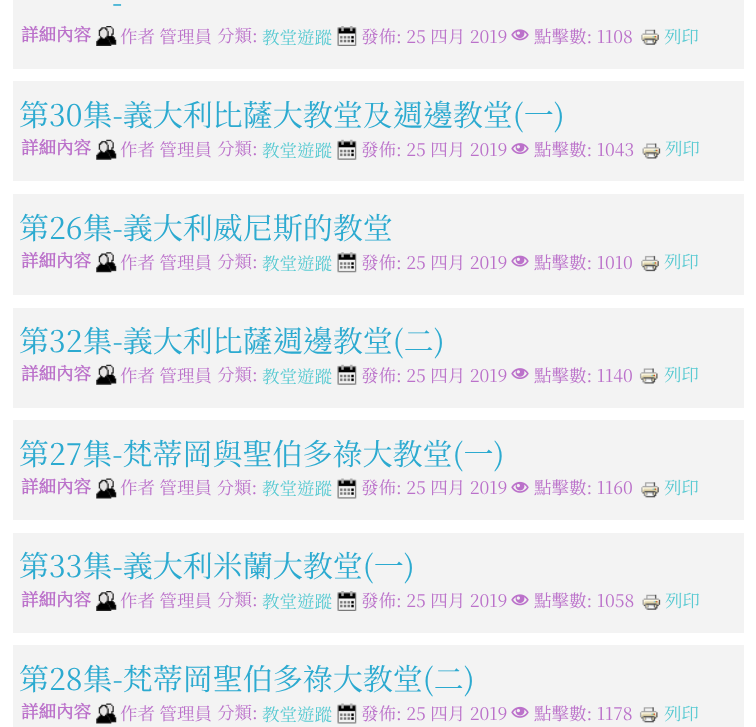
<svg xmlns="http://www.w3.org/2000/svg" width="756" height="727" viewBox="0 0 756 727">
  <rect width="100%" height="100%" fill="rgb(255,255,255)"/>
  <rect x="13" y="0" width="731" height="69" fill="rgb(243,243,243)"/>
  <text x="112" y="13" font-family="Noto Serif TC" font-size="30" font-weight="200" fill="rgb(44,170,208)">-</text>
  <text x="21" y="41" font-family="Noto Serif TC" font-size="17.5" font-weight="bold" fill="rgb(187,113,202)">詳細內容</text>
  <image x="96" y="26" width="21" height="20" href="pic1.png"/>
  <g font-family="Noto Serif TC" font-size="17.5" font-weight="200" fill="rgb(187,113,202)">
    <text x="120" y="43">作者 管理員</text>
    <text x="217" y="42">分類:</text>
  </g>
  <text x="262" y="44" font-family="Noto Serif TC" font-size="17.5" font-weight="200" fill="rgb(89,202,210)">教堂遊蹤</text>
  <image x="337" y="26" width="20" height="20" href="pic2.png"/>
  <text x="361" y="43" font-family="Noto Serif TC" font-size="17.5" font-weight="200" fill="rgb(187,113,202)">發佈: 25 四月 2019</text>
  <image x="511" y="29" width="18" height="12" href="pic3.png"/>
  <text x="534" y="43" font-family="Noto Serif TC" font-size="17.5" font-weight="200" fill="rgb(187,113,202)">點擊數: 1108</text>
  <image x="641" y="29" width="18" height="16" href="pic4.png"/>
  <text x="664" y="43" font-family="Noto Serif TC" font-size="17.5" font-weight="200" fill="rgb(89,202,210)">列印</text>
  <rect x="13" y="81" width="731" height="100" fill="rgb(243,243,243)"/>
  <text x="19" y="126" font-family="Noto Serif TC" font-size="30" font-weight="200" fill="rgb(44,170,208)">第30集-義大利比薩大教堂及週邊教堂(一)</text>
  <text x="21" y="154" font-family="Noto Serif TC" font-size="17.5" font-weight="bold" fill="rgb(187,113,202)">詳細內容</text>
  <image x="96" y="139" width="21" height="21" href="pic5.png"/>
  <g font-family="Noto Serif TC" font-size="17.5" font-weight="200" fill="rgb(187,113,202)">
    <text x="120" y="156">作者 管理員</text>
    <text x="217" y="155">分類:</text>
  </g>
  <text x="262" y="157" font-family="Noto Serif TC" font-size="17.5" font-weight="200" fill="rgb(89,202,210)">教堂遊蹤</text>
  <image x="337" y="139" width="20" height="21" href="pic6.png"/>
  <text x="361" y="156" font-family="Noto Serif TC" font-size="17.5" font-weight="200" fill="rgb(187,113,202)">發佈: 25 四月 2019</text>
  <image x="511" y="143" width="18" height="11" href="pic7.png"/>
  <text x="534" y="156" font-family="Noto Serif TC" font-size="17.5" font-weight="200" fill="rgb(187,113,202)">點擊數: 1043</text>
  <image x="642" y="143" width="19" height="16" href="pic8.png"/>
  <text x="665" y="155" font-family="Noto Serif TC" font-size="17.5" font-weight="200" fill="rgb(89,202,210)">列印</text>
  <rect x="13" y="194" width="731" height="101" fill="rgb(243,243,243)"/>
  <text x="19" y="239" font-family="Noto Serif TC" font-size="30" font-weight="200" fill="rgb(44,170,208)">第26集-義大利威尼斯的教堂</text>
  <text x="21" y="267" font-family="Noto Serif TC" font-size="17.5" font-weight="bold" fill="rgb(187,113,202)">詳細內容</text>
  <image x="96" y="252" width="21" height="21" href="pic9.png"/>
  <g font-family="Noto Serif TC" font-size="17.5" font-weight="200" fill="rgb(187,113,202)">
    <text x="120" y="269">作者 管理員</text>
    <text x="217" y="268">分類:</text>
  </g>
  <text x="262" y="270" font-family="Noto Serif TC" font-size="17.5" font-weight="200" fill="rgb(89,202,210)">教堂遊蹤</text>
  <image x="337" y="252" width="20" height="21" href="pic10.png"/>
  <text x="361" y="269" font-family="Noto Serif TC" font-size="17.5" font-weight="200" fill="rgb(187,113,202)">發佈: 25 四月 2019</text>
  <image x="511" y="255" width="18" height="12" href="pic11.png"/>
  <text x="534" y="269" font-family="Noto Serif TC" font-size="17.5" font-weight="200" fill="rgb(187,113,202)">點擊數: 1010</text>
  <image x="641" y="255" width="18" height="17" href="pic12.png"/>
  <text x="664" y="268" font-family="Noto Serif TC" font-size="17.5" font-weight="200" fill="rgb(89,202,210)">列印</text>
  <rect x="13" y="308" width="731" height="100" fill="rgb(243,243,243)"/>
  <text x="19" y="352" font-family="Noto Serif TC" font-size="30" font-weight="200" fill="rgb(44,170,208)">第32集-義大利比薩週邊教堂(二)</text>
  <text x="21" y="380" font-family="Noto Serif TC" font-size="17.5" font-weight="bold" fill="rgb(187,113,202)">詳細內容</text>
  <image x="96" y="364" width="21" height="21" href="pic5.png"/>
  <g font-family="Noto Serif TC" font-size="17.5" font-weight="200" fill="rgb(187,113,202)">
    <text x="120" y="382">作者 管理員</text>
    <text x="217" y="381">分類:</text>
  </g>
  <text x="262" y="383" font-family="Noto Serif TC" font-size="17.5" font-weight="200" fill="rgb(89,202,210)">教堂遊蹤</text>
  <image x="337" y="364" width="20" height="21" href="pic6.png"/>
  <text x="361" y="382" font-family="Noto Serif TC" font-size="17.5" font-weight="200" fill="rgb(187,113,202)">發佈: 25 四月 2019</text>
  <image x="511" y="368" width="18" height="11" href="pic7.png"/>
  <text x="534" y="382" font-family="Noto Serif TC" font-size="17.5" font-weight="200" fill="rgb(187,113,202)">點擊數: 1140</text>
  <image x="639" y="368" width="19" height="16" href="pic13.png"/>
  <text x="664" y="381" font-family="Noto Serif TC" font-size="17.5" font-weight="200" fill="rgb(89,202,210)">列印</text>
  <rect x="13" y="420" width="731" height="100" fill="rgb(243,243,243)"/>
  <text x="19" y="465" font-family="Noto Serif TC" font-size="30" font-weight="200" fill="rgb(44,170,208)">第27集-梵蒂岡與聖伯多祿大教堂(一)</text>
  <text x="21" y="493" font-family="Noto Serif TC" font-size="17.5" font-weight="bold" fill="rgb(187,113,202)">詳細內容</text>
  <image x="96" y="478" width="21" height="21" href="pic14.png"/>
  <text x="120" y="494" font-family="Noto Serif TC" font-size="17.5" font-weight="200" fill="rgb(187,113,202)">作者 管理員 分類:</text>
  <text x="262" y="495" font-family="Noto Serif TC" font-size="17.5" font-weight="200" fill="rgb(89,202,210)">教堂遊蹤</text>
  <image x="337" y="478" width="20" height="21" href="pic15.png"/>
  <text x="361" y="494" font-family="Noto Serif TC" font-size="17.5" font-weight="200" fill="rgb(187,113,202)">發佈: 25 四月 2019</text>
  <image x="511" y="481" width="18" height="12" href="pic16.png"/>
  <text x="534" y="494" font-family="Noto Serif TC" font-size="17.5" font-weight="200" fill="rgb(187,113,202)">點擊數: 1160</text>
  <image x="641" y="482" width="18" height="16" href="pic17.png"/>
  <text x="664" y="494" font-family="Noto Serif TC" font-size="17.5" font-weight="200" fill="rgb(89,202,210)">列印</text>
  <rect x="13" y="533" width="731" height="100" fill="rgb(243,243,243)"/>
  <text x="19" y="577" font-family="Noto Serif TC" font-size="30" font-weight="200" fill="rgb(44,170,208)">第33集-義大利米蘭大教堂(一)</text>
  <text x="21" y="606" font-family="Noto Serif TC" font-size="17.5" font-weight="bold" fill="rgb(187,113,202)">詳細內容</text>
  <image x="96" y="591" width="21" height="20" href="pic1.png"/>
  <g font-family="Noto Serif TC" font-size="17.5" font-weight="200" fill="rgb(187,113,202)">
    <text x="120" y="607">作者 管理員</text>
    <text x="217" y="606">分類:</text>
  </g>
  <text x="262" y="608" font-family="Noto Serif TC" font-size="17.5" font-weight="200" fill="rgb(89,202,210)">教堂遊蹤</text>
  <image x="337" y="591" width="20" height="20" href="pic2.png"/>
  <text x="361" y="607" font-family="Noto Serif TC" font-size="17.5" font-weight="200" fill="rgb(187,113,202)">發佈: 25 四月 2019</text>
  <image x="511" y="594" width="18" height="12" href="pic3.png"/>
  <text x="534" y="607" font-family="Noto Serif TC" font-size="17.5" font-weight="200" fill="rgb(187,113,202)">點擊數: 1058</text>
  <image x="642" y="594" width="19" height="16" href="pic18.png"/>
  <text x="665" y="607" font-family="Noto Serif TC" font-size="17.5" font-weight="200" fill="rgb(89,202,210)">列印</text>
  <rect x="13" y="645" width="731" height="82" fill="rgb(243,243,243)"/>
  <text x="19" y="690" font-family="Noto Serif TC" font-size="30" font-weight="200" fill="rgb(44,170,208)">第28集-梵蒂岡聖伯多祿大教堂(二)</text>
  <text x="21" y="718" font-family="Noto Serif TC" font-size="17.5" font-weight="bold" fill="rgb(187,113,202)">詳細內容</text>
  <image x="96" y="703" width="21" height="21" href="pic14.png"/>
  <g font-family="Noto Serif TC" font-size="17.5" font-weight="200" fill="rgb(187,113,202)">
    <text x="120" y="720">作者 管理員</text>
    <text x="217" y="719">分類:</text>
  </g>
  <text x="262" y="721" font-family="Noto Serif TC" font-size="17.5" font-weight="200" fill="rgb(89,202,210)">教堂遊蹤</text>
  <image x="337" y="703" width="20" height="21" href="pic15.png"/>
  <text x="361" y="720" font-family="Noto Serif TC" font-size="17.5" font-weight="200" fill="rgb(187,113,202)">發佈: 25 四月 2019</text>
  <image x="511" y="706" width="18" height="12" href="pic16.png"/>
  <text x="534" y="720" font-family="Noto Serif TC" font-size="17.5" font-weight="200" fill="rgb(187,113,202)">點擊數: 1178</text>
  <image x="639" y="707" width="19" height="16" href="pic19.png"/>
  <text x="664" y="720" font-family="Noto Serif TC" font-size="17.5" font-weight="200" fill="rgb(89,202,210)">列印</text>
</svg>
